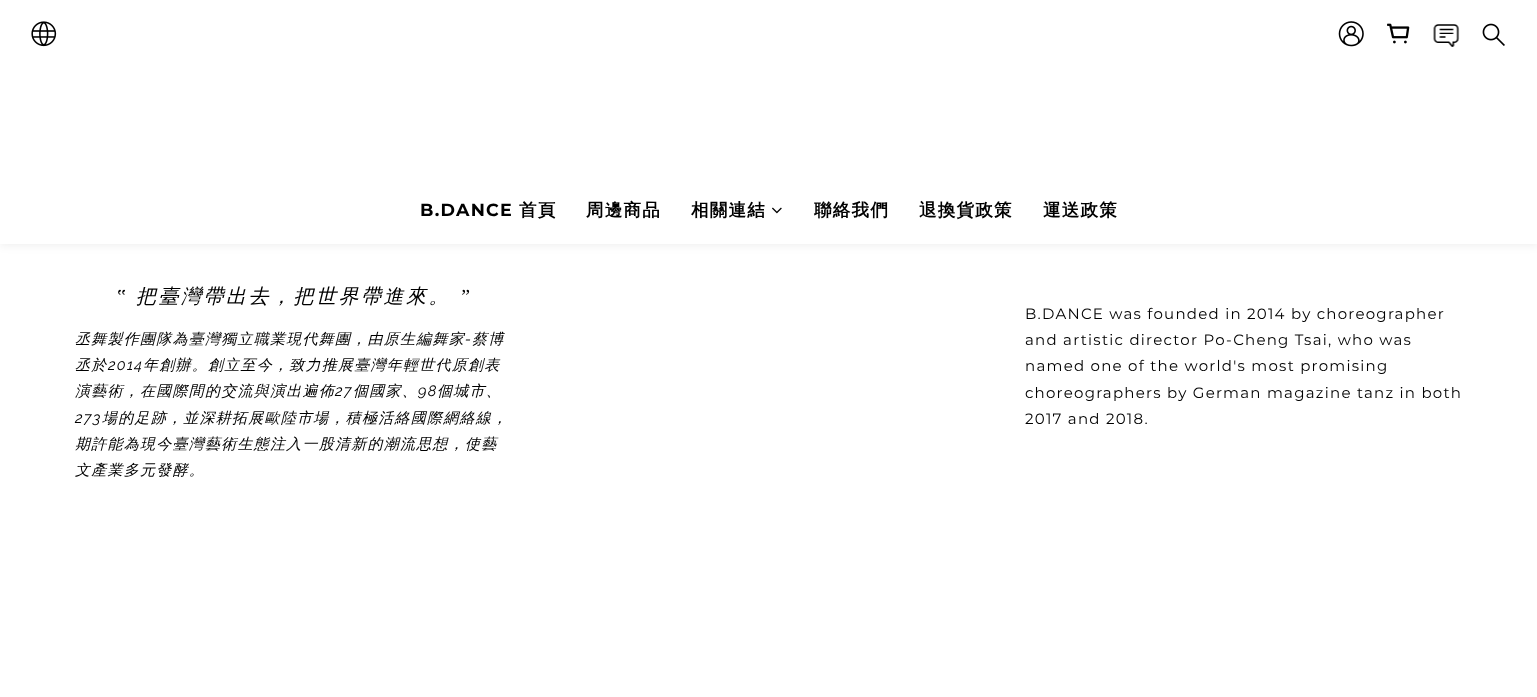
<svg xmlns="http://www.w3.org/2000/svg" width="1537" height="697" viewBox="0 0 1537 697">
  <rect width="100%" height="100%" fill="rgb(255,255,255)"/>
  <rect x="0" y="3" width="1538" height="243" fill="rgba(0,0,0,0.06)" filter="blur(4px)"/>
  <rect x="0" y="0" width="1537" height="244" fill="rgb(255,255,255)"/>
  <image x="31" y="21" width="26" height="26" href="pic1.png"/>
  <image x="1338" y="21" width="26" height="26" href="pic2.png"/>
  <image x="1387" y="23" width="23" height="21" href="pic3.png"/>
  <image x="1433" y="24" width="27" height="23" href="pic4.png"/>
  <image x="1482" y="23" width="23" height="23" href="pic5.png"/>
  <text x="420" y="216" font-family="Montserrat" font-size="17.5" font-weight="bold" letter-spacing="1.25" fill="rgb(0,0,0)">B.DANCE</text>
  <g font-family="WenQuanYi Zen Hei" font-size="17.5" font-weight="bold" letter-spacing="1.25" fill="rgb(0,0,0)">
    <text x="519" y="216">首頁</text>
    <text x="586" y="216">周邊商品</text>
    <text x="691" y="216">相關連結</text>
  </g>
  <image x="772" y="207" width="10" height="7" href="pic6.png"/>
  <g font-family="WenQuanYi Zen Hei" font-size="17.5" font-weight="bold" letter-spacing="1.25" fill="rgb(0,0,0)">
    <text x="814" y="216">聯絡我們</text>
    <text x="919" y="216">退換貨政策</text>
    <text x="1043" y="216">運送政策</text>
  </g>
  <text x="115" y="303" font-family="Liberation Serif" font-size="20" font-style="italic" letter-spacing="2.5" fill="rgb(0,0,0)">‟</text>
  <text x="136" y="303" font-family="WenQuanYi Zen Hei" font-size="20" font-weight="500" font-style="italic" letter-spacing="2.5" fill="rgb(0,0,0)">把臺灣帶出去，把世界帶進來。</text>
  <text x="459" y="303" font-family="Liberation Serif" font-size="20" font-style="italic" letter-spacing="2.5" fill="rgb(0,0,0)">”</text>
  <text x="75" y="344" font-family="WenQuanYi Zen Hei" font-size="15" font-weight="500" font-style="italic" letter-spacing="1.25" fill="rgb(0,0,0)">丞舞製作團隊為臺灣獨立職業現代舞團，由原生編舞家</text>
  <text x="465" y="344" font-family="Raleway" font-size="15" font-style="italic" letter-spacing="1.25" fill="rgb(0,0,0)">-</text>
  <g font-family="WenQuanYi Zen Hei" font-size="15" font-weight="500" font-style="italic" letter-spacing="1.25" fill="rgb(0,0,0)">
    <text x="472" y="344">蔡博</text>
    <text x="75" y="370">丞於</text>
  </g>
  <text x="108" y="370" font-family="Raleway" font-size="15" font-style="italic" letter-spacing="1.25" fill="rgb(0,0,0)">2014</text>
  <g font-family="WenQuanYi Zen Hei" font-size="15" font-weight="500" font-style="italic" letter-spacing="1.25" fill="rgb(0,0,0)">
    <text x="143" y="370">年創辦。創立至今，致力推展臺灣年輕世代原創表</text>
    <text x="75" y="396">演藝術，在國際間的交流與演出遍佈</text>
  </g>
  <text x="335" y="396" font-family="Raleway" font-size="15" font-style="italic" letter-spacing="1.25" fill="rgb(0,0,0)">27</text>
  <text x="353" y="396" font-family="WenQuanYi Zen Hei" font-size="15" font-weight="500" font-style="italic" letter-spacing="1.25" fill="rgb(0,0,0)">個國家、</text>
  <text x="418" y="396" font-family="Raleway" font-size="15" font-style="italic" letter-spacing="1.25" fill="rgb(0,0,0)">98</text>
  <text x="437" y="396" font-family="WenQuanYi Zen Hei" font-size="15" font-weight="500" font-style="italic" letter-spacing="1.25" fill="rgb(0,0,0)">個城市、</text>
  <text x="75" y="423" font-family="Raleway" font-size="15" font-style="italic" letter-spacing="1.25" fill="rgb(0,0,0)">273</text>
  <g font-family="WenQuanYi Zen Hei" font-size="15" font-weight="500" font-style="italic" letter-spacing="1.25" fill="rgb(0,0,0)">
    <text x="102" y="423">場的足跡，並深耕拓展歐陸市場，積極活絡國際網絡線，</text>
    <text>
      <tspan x="75" y="449">期許能為現今臺灣藝術生態注入一股清新的潮流思想，使藝</tspan>
      <tspan x="75" y="475">文產業多元發酵。</tspan>
    </text>
  </g>
  <g font-family="Montserrat" font-size="15" letter-spacing="1.25" fill="rgb(0,0,0)">
    <text>
      <tspan x="1025" y="319">B.DANCE was founded in 2014 by choreographer</tspan>
      <tspan x="1025" y="345">and artistic director Po-Cheng Tsai, who was</tspan>
      <tspan x="1025" y="371">named one of the world's most promising</tspan>
      <tspan x="1025" y="398">choreographers by German magazine tanz in both</tspan>
      <tspan x="1025" y="424">2017 and 2018.</tspan>
    </text>
  </g>
</svg>
